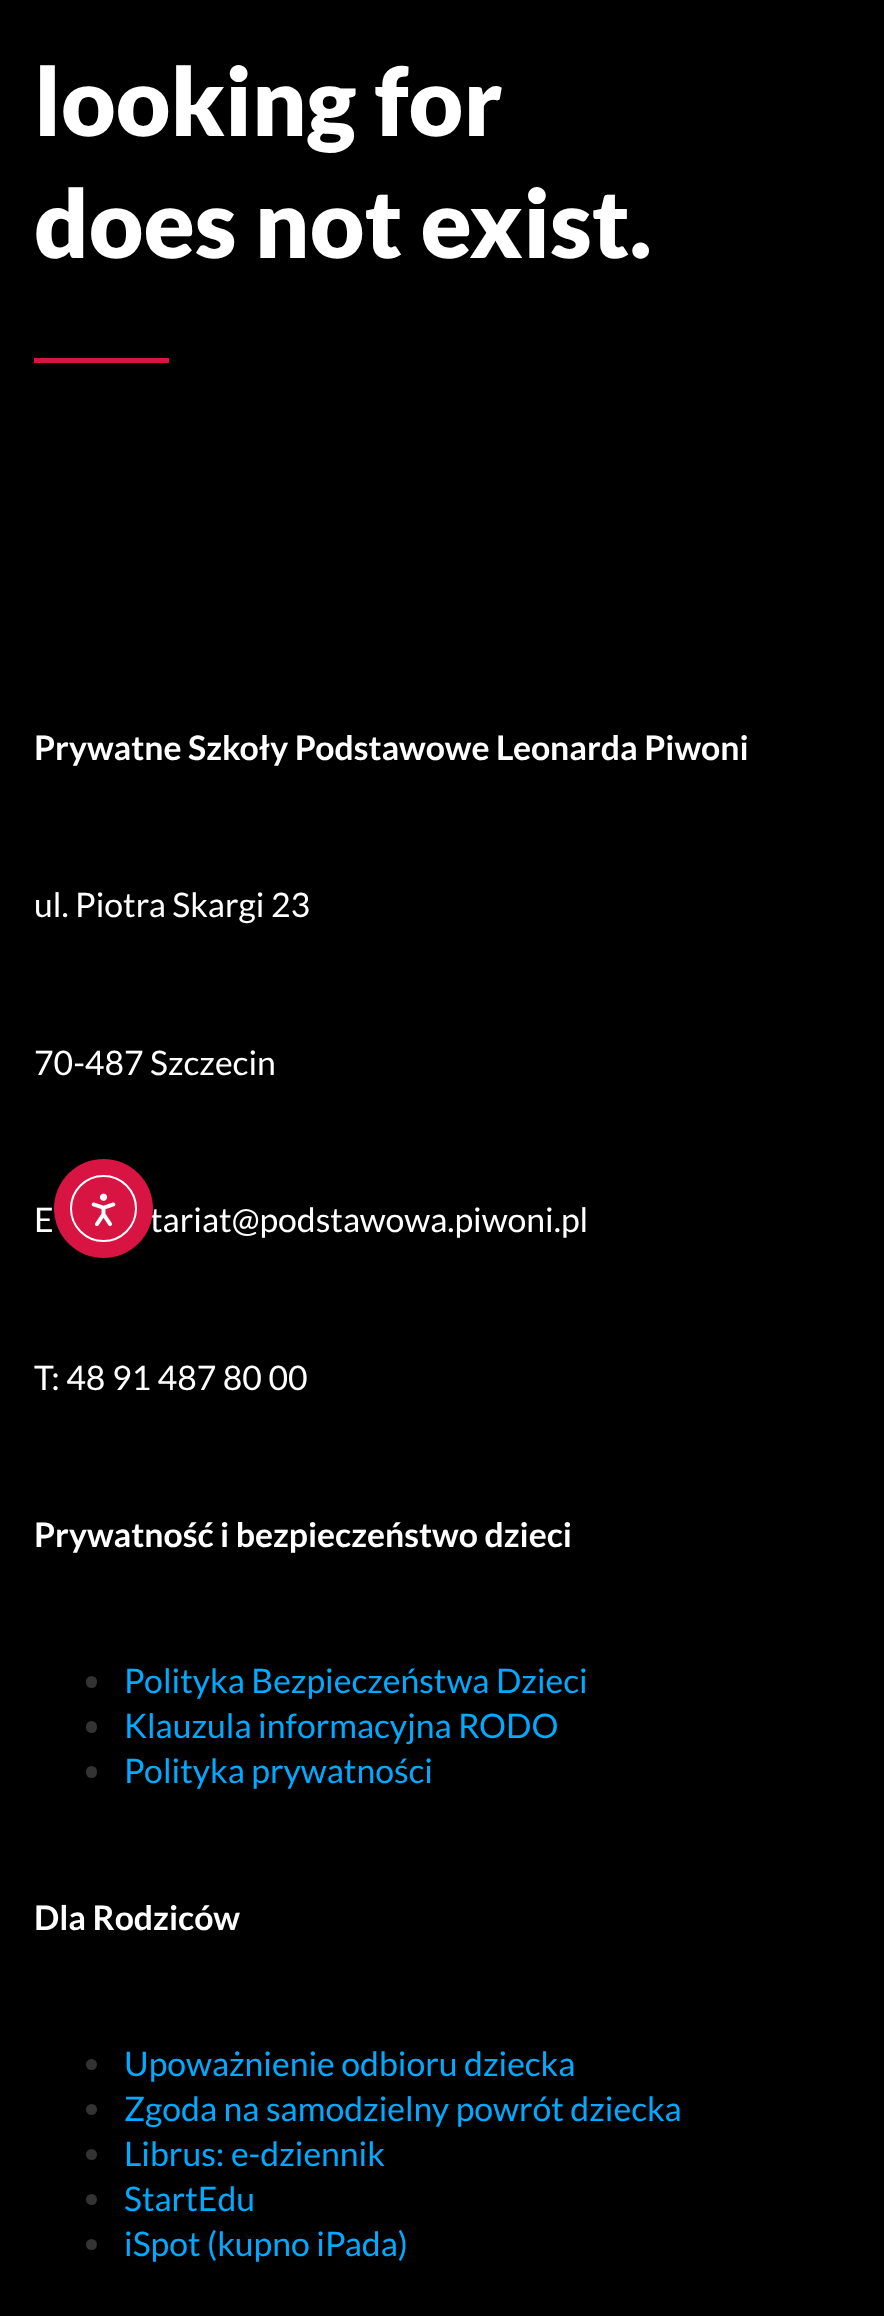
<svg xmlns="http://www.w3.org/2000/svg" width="884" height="2316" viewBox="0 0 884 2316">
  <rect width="100%" height="100%" fill="rgb(0,0,0)"/>
  <g font-family="Lato" font-size="94.5" font-weight="900" fill="rgb(255,255,255)">
    <text>
      <tspan x="34" y="136">looking for</tspan>
      <tspan x="34" y="258">does not exist.</tspan>
    </text>
  </g>
  <rect x="34" y="358" width="135" height="5" fill="rgb(216,20,66)"/>
  <text x="34" y="760" font-family="Lato" font-size="33.75" font-weight="bold" fill="rgb(255,255,255)">Prywatne Szkoły Podstawowe Leonarda Piwoni</text>
  <g font-family="Lato" font-size="33.75" fill="rgb(255,255,255)">
    <text x="34" y="917">ul. Piotra Skargi 23</text>
    <text x="34" y="1075">70-487 Szczecin</text>
    <text x="34" y="1232">E</text>
    <text x="150" y="1232">tariat@podstawowa.piwoni.pl</text>
    <text x="34" y="1390">T: 48 91 487 80 00</text>
  </g>
  <text x="34" y="1547" font-family="Lato" font-size="33.75" font-weight="bold" fill="rgb(255,255,255)">Prywatność i bezpieczeństwo dzieci</text>
  <rect x="86" y="1676" width="11" height="12" rx="5.5" fill="rgb(51,51,51)"/>
  <text x="124" y="1693" font-family="Lato" font-size="33.75" fill="rgb(0,170,255)">Polityka Bezpieczeństwa Dzieci</text>
  <rect x="86" y="1721" width="11" height="12" rx="5.5" fill="rgb(51,51,51)"/>
  <text x="124" y="1738" font-family="Lato" font-size="33.75" fill="rgb(0,170,255)">Klauzula informacyjna RODO</text>
  <rect x="86" y="1766" width="11" height="12" rx="5.5" fill="rgb(51,51,51)"/>
  <text x="124" y="1783" font-family="Lato" font-size="33.75" fill="rgb(0,170,255)">Polityka prywatności</text>
  <text x="34" y="1930" font-family="Lato" font-size="33.75" font-weight="bold" fill="rgb(255,255,255)">Dla Rodziców</text>
  <circle cx="91.5" cy="2064.5" r="5.5" fill="rgb(51,51,51)"/>
  <text x="124" y="2076" font-family="Lato" font-size="33.75" fill="rgb(0,170,255)">Upoważnienie odbioru dziecka</text>
  <circle cx="91.5" cy="2109.5" r="5.5" fill="rgb(51,51,51)"/>
  <text x="124" y="2121" font-family="Lato" font-size="33.75" fill="rgb(0,170,255)">Zgoda na samodzielny powrót dziecka</text>
  <circle cx="91.5" cy="2154.5" r="5.5" fill="rgb(51,51,51)"/>
  <text x="124" y="2166" font-family="Lato" font-size="33.75" fill="rgb(0,170,255)">Librus: e-dziennik</text>
  <circle cx="91.5" cy="2199.5" r="5.5" fill="rgb(51,51,51)"/>
  <text x="124" y="2211" font-family="Lato" font-size="33.75" fill="rgb(0,170,255)">StartEdu</text>
  <circle cx="91.5" cy="2244.5" r="5.5" fill="rgb(51,51,51)"/>
  <text x="124" y="2256" font-family="Lato" font-size="33.75" fill="rgb(0,170,255)">iSpot (kupno iPada)</text>
  <circle cx="103.5" cy="1208.5" r="49.5" fill="rgb(216,20,66)"/>
  <circle cx="103.5" cy="1208.5" r="32.5" fill="none" stroke="rgb(255,255,255)" stroke-width="2"/>
  <image x="91" y="1193" width="25" height="34" href="pic1.png"/>
</svg>
